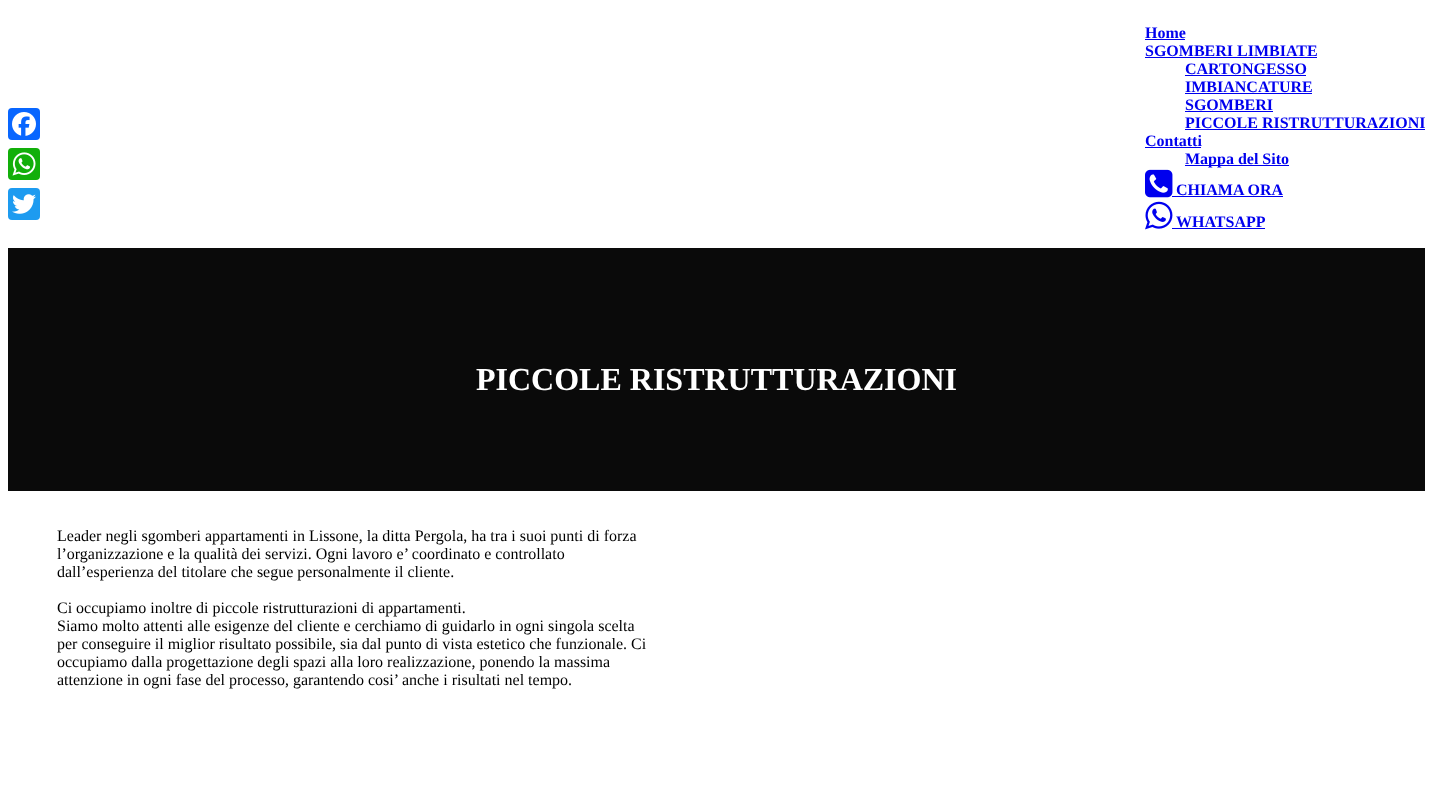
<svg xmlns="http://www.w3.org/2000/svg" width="1433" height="802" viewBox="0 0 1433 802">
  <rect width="100%" height="100%" fill="rgb(255,255,255)"/>
  <rect x="8" y="108" width="32" height="32" rx="4" fill="rgb(8,102,255)"/>
  <image x="12" y="112" width="24" height="24" href="pic1.png"/>
  <rect x="8" y="148" width="32" height="32" rx="4" fill="rgb(18,175,10)"/>
  <image x="12" y="152" width="24" height="24" href="pic2.png"/>
  <rect x="8" y="188" width="32" height="32" rx="4" fill="rgb(29,155,240)"/>
  <image x="12" y="194" width="24" height="20" href="pic3.png"/>
  <text x="1145" y="38" font-family="Liberation Serif" font-size="16" font-weight="bold" fill="rgb(0,0,238)">Home</text>
  <rect x="1145" y="39" width="40" height="1" fill="rgb(0,0,238)"/>
  <text x="1145" y="56" font-family="Liberation Serif" font-size="16" font-weight="bold" fill="rgb(0,0,238)">SGOMBERI LIMBIATE</text>
  <rect x="1145" y="57" width="172" height="1" fill="rgb(0,0,238)"/>
  <text x="1185" y="74" font-family="Liberation Serif" font-size="16" font-weight="bold" fill="rgb(0,0,238)">CARTONGESSO</text>
  <rect x="1185" y="75" width="121" height="1" fill="rgb(0,0,238)"/>
  <text x="1185" y="92" font-family="Liberation Serif" font-size="16" font-weight="bold" fill="rgb(0,0,238)">IMBIANCATURE</text>
  <rect x="1185" y="93" width="127" height="1" fill="rgb(0,0,238)"/>
  <text x="1185" y="110" font-family="Liberation Serif" font-size="16" font-weight="bold" fill="rgb(0,0,238)">SGOMBERI</text>
  <rect x="1185" y="111" width="88" height="1" fill="rgb(0,0,238)"/>
  <text x="1185" y="128" font-family="Liberation Serif" font-size="16" font-weight="bold" fill="rgb(0,0,238)">PICCOLE RISTRUTTURAZIONI</text>
  <rect x="1185" y="129" width="240" height="1" fill="rgb(0,0,238)"/>
  <text x="1145" y="146" font-family="Liberation Serif" font-size="16" font-weight="bold" fill="rgb(0,0,238)">Contatti</text>
  <rect x="1145" y="147" width="56" height="1" fill="rgb(0,0,238)"/>
  <rect x="1185" y="165" width="104" height="1" fill="rgb(0,0,238)"/>
  <text x="1185" y="164" font-family="Liberation Serif" font-size="16" font-weight="bold" fill="rgb(0,0,238)">Mappa del Sito</text>
  <image x="1145" y="169" width="28" height="29" href="pic4.png"/>
  <text x="1176" y="195" font-family="Liberation Serif" font-size="16" font-weight="bold" fill="rgb(0,0,238)">CHIAMA ORA</text>
  <rect x="1172" y="196" width="111" height="1" fill="rgb(0,0,238)"/>
  <image x="1145" y="201" width="28" height="29" href="pic5.png"/>
  <text x="1176" y="227" font-family="Liberation Serif" font-size="16" font-weight="bold" fill="rgb(0,0,238)">WHATSAPP</text>
  <rect x="1172" y="228" width="93" height="1" fill="rgb(0,0,238)"/>
  <rect x="8" y="248" width="1417" height="243" fill="rgb(10,10,10)"/>
  <text x="476" y="390" font-family="Liberation Serif" font-size="32" font-weight="bold" fill="rgb(255,255,255)">PICCOLE RISTRUTTURAZIONI</text>
  <g font-family="Liberation Serif" font-size="16" fill="rgb(0,0,0)">
    <text>
      <tspan x="57" y="541">Leader negli sgomberi appartamenti in Lissone, la ditta Pergola, ha tra i suoi punti di forza</tspan>
      <tspan x="57" y="559">l’organizzazione e la qualità dei servizi. Ogni lavoro e’ coordinato e controllato</tspan>
      <tspan x="57" y="577">dall’esperienza del titolare che segue personalmente il cliente.</tspan>
    </text>
    <text>
      <tspan x="57" y="613">Ci occupiamo inoltre di piccole ristrutturazioni di appartamenti.</tspan>
      <tspan x="57" y="631">Siamo molto attenti alle esigenze del cliente e cerchiamo di guidarlo in ogni singola scelta</tspan>
      <tspan x="57" y="649">per conseguire il miglior risultato possibile, sia dal punto di vista estetico che funzionale. Ci</tspan>
      <tspan x="57" y="667">occupiamo dalla progettazione degli spazi alla loro realizzazione, ponendo la massima</tspan>
      <tspan x="57" y="685">attenzione in ogni fase del processo, garantendo cosi’ anche i risultati nel tempo.</tspan>
    </text>
  </g>
</svg>
